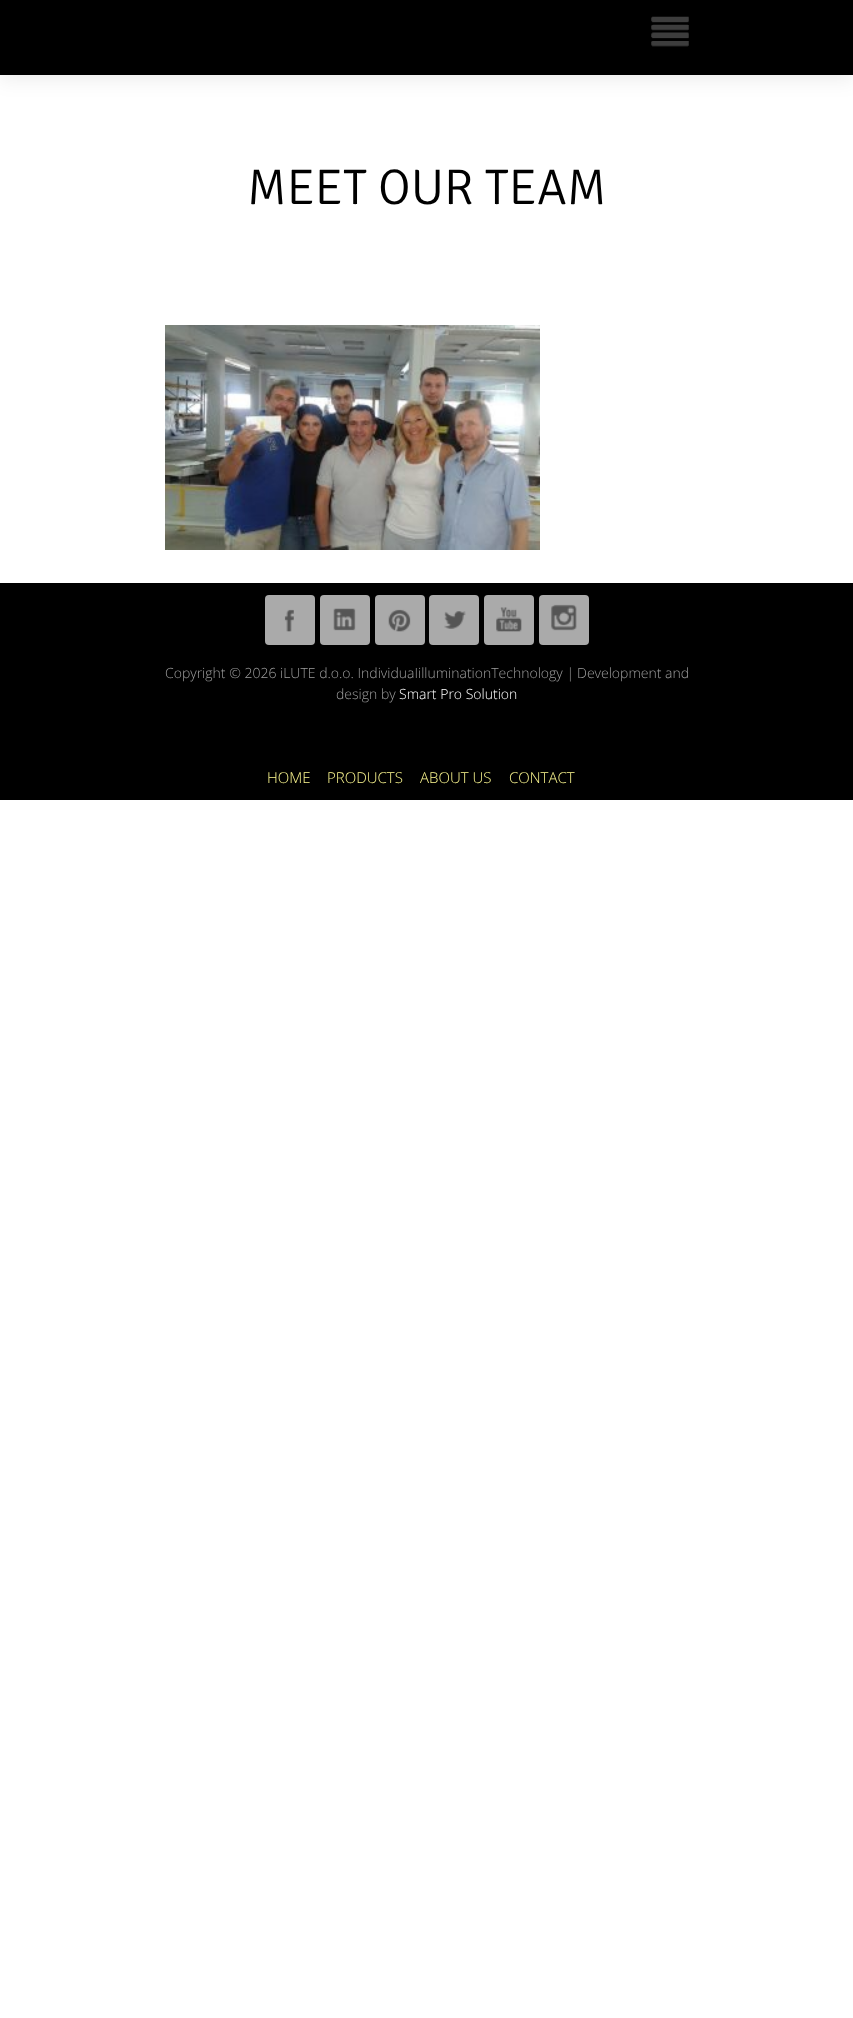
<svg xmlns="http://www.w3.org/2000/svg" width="853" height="2018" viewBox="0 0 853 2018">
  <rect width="100%" height="100%" fill="rgb(255,255,255)"/>
  <rect x="0" y="5" width="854" height="75" fill="rgba(0,0,0,0.07)" filter="blur(9.5px)"/>
  <rect x="0" y="0" width="853" height="75" fill="rgb(0,0,0)"/>
  <image x="651" y="16" width="38" height="31" href="pic1.png"/>
  <text x="247" y="204" font-family="Signika" font-size="50" font-weight="300" fill="rgb(0,0,0)">MEET OUR TEAM</text>
  <image x="165" y="325" width="375" height="225" href="pic2.png"/>
  <rect x="0" y="583" width="853" height="217" fill="rgb(0,0,0)"/>
  <rect x="265" y="595" width="50" height="50" rx="4" fill="rgb(170,170,170)"/>
  <image x="284" y="609" width="10" height="23" href="pic3.png"/>
  <rect x="320" y="595" width="50" height="50" rx="4" fill="rgb(170,170,170)"/>
  <image x="333" y="608" width="23" height="23" href="pic4.png"/>
  <rect x="375" y="595" width="50" height="50" rx="4" fill="rgb(170,170,170)"/>
  <image x="388" y="609" width="23" height="23" href="pic5.png"/>
  <rect x="429" y="595" width="50" height="50" rx="4" fill="rgb(170,170,170)"/>
  <image x="444" y="611" width="22" height="18" href="pic6.png"/>
  <rect x="484" y="595" width="50" height="50" rx="4" fill="rgb(170,170,170)"/>
  <image x="496" y="607" width="26" height="25" href="pic7.png"/>
  <rect x="539" y="595" width="50" height="50" rx="4" fill="rgb(170,170,170)"/>
  <image x="551" y="604" width="26" height="27" href="pic8.png"/>
  <g font-family="Open Sans" font-size="14" font-weight="300" fill="rgb(158,158,158)">
    <text x="165" y="678">Copyright © 2026 iLUTE d.o.o. IndividuaIilluminationTechnology |</text>
    <text x="577" y="678">Development and</text>
    <text x="336" y="699">design by</text>
  </g>
  <text x="399" y="699" font-family="Open Sans" font-size="14" font-weight="300" fill="rgb(255,255,255)">Smart Pro Solution</text>
  <g font-family="Open Sans" font-size="15" font-weight="300" fill="rgb(254,249,144)">
    <text x="267" y="783">HOME</text>
    <text x="327" y="783">PRODUCTS</text>
    <text x="420" y="783">ABOUT US</text>
    <text x="509" y="783">CONTACT</text>
  </g>
</svg>
